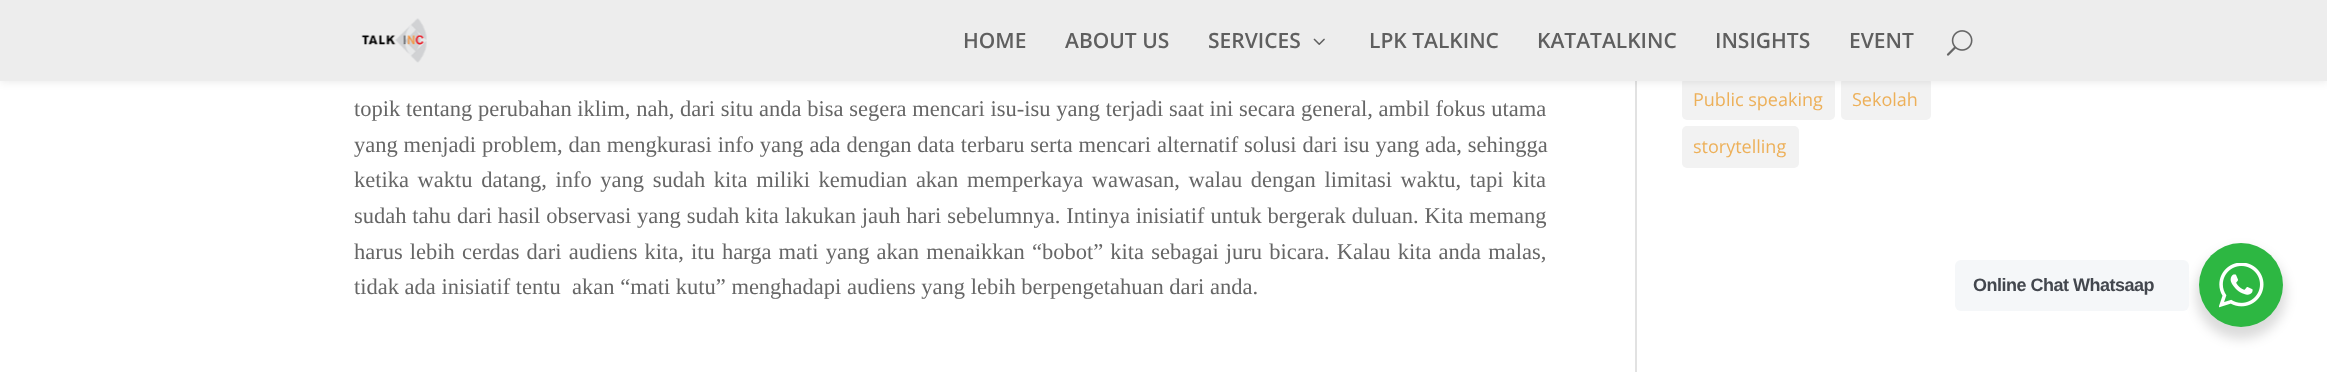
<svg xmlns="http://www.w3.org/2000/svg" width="2327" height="372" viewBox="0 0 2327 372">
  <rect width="100%" height="100%" fill="rgb(255,255,255)"/>
  <rect x="1635" y="81" width="2" height="291" fill="rgb(226,226,226)"/>
  <rect x="1682" y="78" width="153" height="42" rx="5" fill="rgb(242,242,242)"/>
  <rect x="1841" y="78" width="90" height="42" rx="5" fill="rgb(242,242,242)"/>
  <rect x="0" y="0" width="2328" height="81" fill="rgba(0,0,0,0.1)" filter="blur(5px)"/>
  <rect x="0" y="0" width="2327" height="81" fill="rgb(237,237,237)"/>
  <image x="361" y="18" width="66" height="45" href="pic1.png"/>
  <g font-family="Open Sans" font-size="21" font-weight="600" fill="rgb(95,95,95)">
    <text x="963" y="48">HOME</text>
    <text x="1065" y="48">ABOUT US</text>
    <text x="1208" y="48">SERVICES</text>
  </g>
  <image x="1313" y="38" width="12" height="7" href="pic2.png"/>
  <g font-family="Open Sans" font-size="21" font-weight="600" fill="rgb(95,95,95)">
    <text x="1369" y="48">LPK TALKINC</text>
    <text x="1537" y="48">KATATALKINC</text>
    <text x="1715" y="48">INSIGHTS</text>
    <text x="1849" y="48">EVENT</text>
  </g>
  <image x="1946" y="30" width="27" height="26" href="pic3.png"/>
  <g font-family="Liberation Serif" font-size="22.5" fill="rgb(102,102,102)">
    <text xml:space="preserve"><tspan x="354" y="116" word-spacing="0.1">topik tentang perubahan iklim, nah, dari situ anda bisa segera mencari isu-isu yang terjadi saat ini secara general, ambil fokus utama</tspan><tspan x="354" y="152" word-spacing="0.25">yang menjadi problem, dan mengkurasi info yang ada dengan data terbaru serta mencari alternatif solusi dari isu yang ada, sehingga</tspan><tspan x="354" y="187" word-spacing="3">ketika waktu datang, info yang sudah kita miliki kemudian akan memperkaya wawasan, walau dengan limitasi waktu, tapi kita</tspan><tspan x="354" y="223" word-spacing="0.25">sudah tahu dari hasil observasi yang sudah kita lakukan jauh hari sebelumnya. Intinya inisiatif untuk bergerak duluan. Kita memang</tspan><tspan x="354" y="259" word-spacing="1.5">harus lebih cerdas dari audiens kita, itu harga mati yang akan menaikkan “bobot” kita sebagai juru bicara. Kalau kita anda malas,</tspan><tspan x="354" y="294">tidak ada inisiatif tentu  akan “mati kutu” menghadapi audiens yang lebih berpengetahuan dari anda.</tspan></text>
  </g>
  <g font-family="Open Sans" font-size="18" fill="rgb(237,176,89)">
    <text x="1693" y="106">Public speaking</text>
    <text x="1852" y="106">Sekolah</text>
  </g>
  <rect x="1682" y="126" width="117" height="42" rx="5" fill="rgb(242,242,242)"/>
  <text x="1693" y="153" font-family="Open Sans" font-size="18" fill="rgb(237,176,89)">storytelling</text>
  <rect x="2196" y="249" width="90" height="90" rx="45" fill="rgba(0,0,0,0.14)" filter="blur(6px)"/>
  <rect x="1955" y="260" width="234" height="51" rx="6" fill="rgb(245,247,249)"/>
  <text x="1973" y="291" font-family="Liberation Sans" font-size="18" font-weight="bold" letter-spacing="-0.5" fill="rgb(67,71,78)">Online Chat Whatsaap</text>
  <circle cx="2241" cy="285" r="42" fill="rgb(45,183,66)"/>
  <image x="2219" y="263" width="45" height="45" href="pic4.png"/>
</svg>
